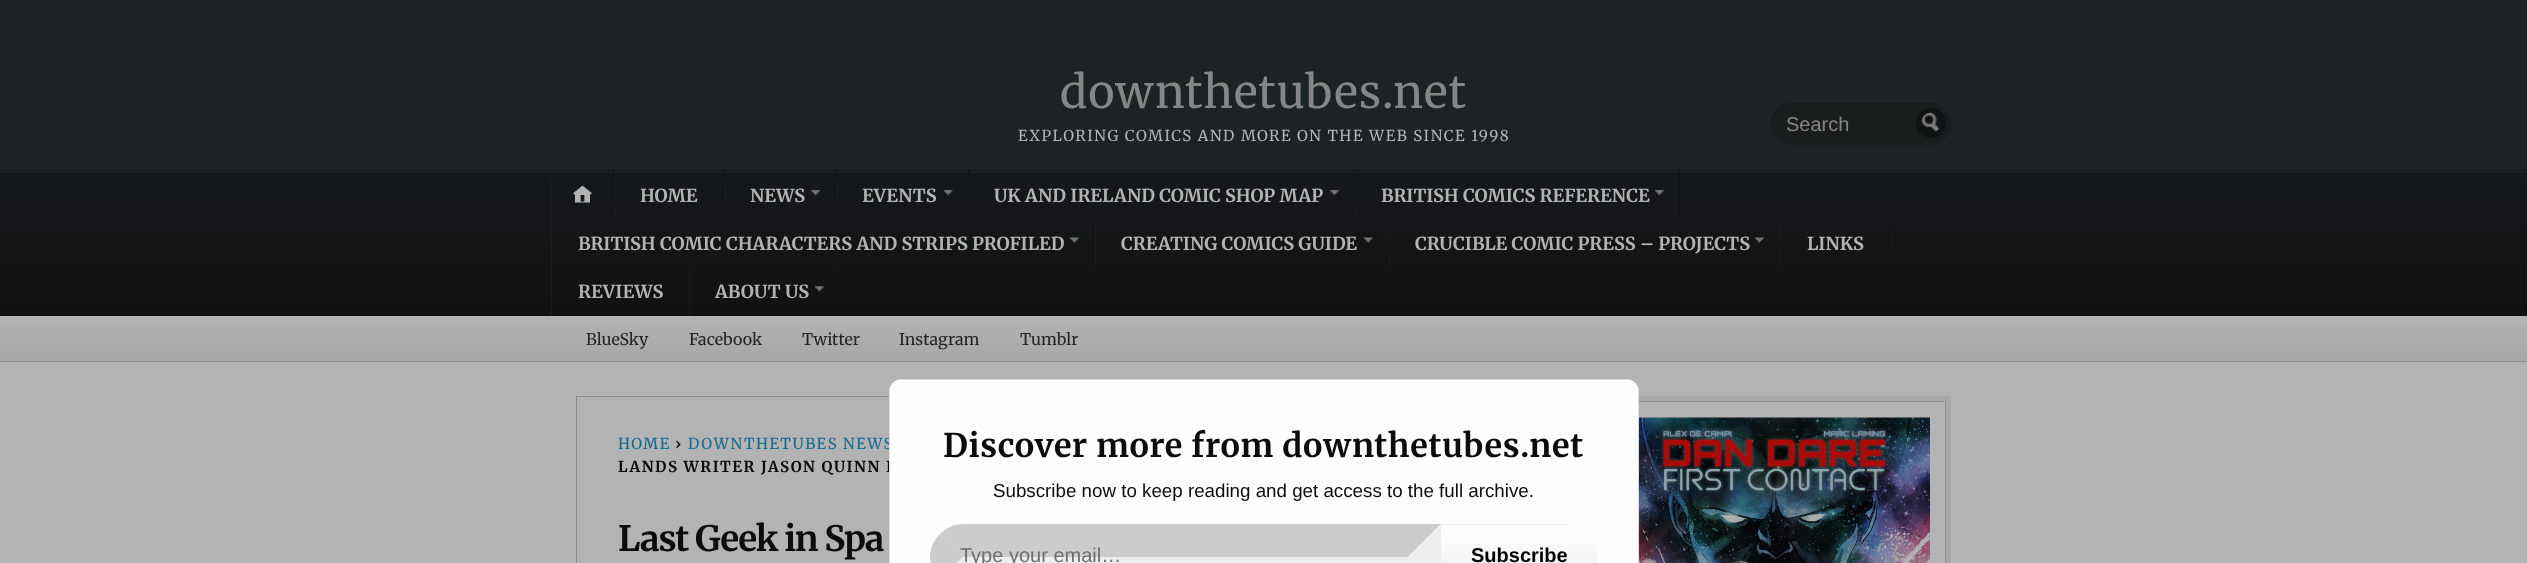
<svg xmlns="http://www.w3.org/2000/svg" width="2527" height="563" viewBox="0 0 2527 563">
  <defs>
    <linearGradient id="g1" gradientUnits="userSpaceOnUse" x1="1264" y1="26" x2="1264" y2="171"><stop offset="0" stop-color="rgb(22,25,27)"/><stop offset="1" stop-color="rgb(15,17,18)"/></linearGradient>
    <linearGradient id="g2" gradientUnits="userSpaceOnUse" x1="1264" y1="171" x2="1264" y2="316"><stop offset="0" stop-color="rgb(22,25,27)"/><stop offset="1" stop-color="rgb(15,17,18)"/></linearGradient>
    <clipPath id="clip1"><rect x="0" y="171" width="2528" height="145"/></clipPath>
    <linearGradient id="g3" gradientUnits="userSpaceOnUse" x1="1264" y1="316" x2="1264" y2="361"><stop offset="0" stop-color="rgb(179,179,179)"/><stop offset="1" stop-color="rgb(167,167,167)"/></linearGradient>
    <clipPath id="clip2"><path d="M1441 524H1565C1583 524 1598 539 1598 557C1598 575 1583 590 1565 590H1441Z"/></clipPath>
    <linearGradient id="g4" gradientUnits="userSpaceOnUse" x1="1519" y1="461" x2="1519" y2="525"><stop offset="0" stop-color="rgb(255,255,255)"/><stop offset="1" stop-color="rgb(238,238,238)"/></linearGradient>
    <linearGradient id="g5" gradientUnits="userSpaceOnUse" x1="1519" y1="525" x2="1519" y2="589"><stop offset="0" stop-color="rgb(255,255,255)"/><stop offset="1" stop-color="rgb(238,238,238)"/></linearGradient>
  </defs>
  <rect width="100%" height="100%" fill="rgb(179,179,179)"/>
  <rect x="0" y="0" width="2527" height="170" fill="rgb(29,34,36)"/>
  <text x="1060" y="108" font-family="Merriweather" font-size="45" letter-spacing="0.9" fill="rgb(134,134,134)">downthetubes.net</text>
  <text x="1018" y="141" font-family="Merriweather" font-size="15" letter-spacing="1.5" fill="rgb(179,179,179)">EXPLORING COMICS AND MORE ON THE WEB SINCE 1998</text>
  <rect x="1771" y="103" width="180" height="42" rx="21" fill="rgb(25,29,30)"/>
  <path d="M1794 104H1931C1936 104 1940 105 1943 108C1940 105 1935 103 1930 103H1792C1780 103 1771 112 1771 124C1771 131 1774 137 1779 141C1764 128 1774 104 1794 104Z" fill="rgba(0,0,0,0.1)"/>
  <text x="1786" y="131" font-family="Liberation Sans" font-size="20" fill="rgb(134,134,134)">Search</text>
  <circle cx="1931" cy="123" r="15" fill="rgb(16,19,20)"/>
  <image x="1921" y="112" width="18" height="20" href="pic1.png"/>
  <rect x="0" y="170" width="2527" height="1" fill="url(#g1)"/>
  <rect x="0" y="172" width="2527" height="144" fill="url(#g2)"/>
  <g clip-path="url(#clip1)">
    <path d="M-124 48H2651V440H-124ZM0 172H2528C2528 172 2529 173 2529 174V319C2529 319 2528 320 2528 320H0C-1 320-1 319-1 319V174C-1 173-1 172 0 172Z" fill="rgb(37,41,42)" fill-rule="evenodd"/>
  </g>
  <rect x="613" y="171" width="1" height="48" fill="rgb(15,17,18)"/>
  <rect x="551" y="171" width="1" height="48" fill="rgb(25,29,30)"/>
  <image x="573" y="185" width="19" height="18" href="pic2.png"/>
  <rect x="723" y="171" width="1" height="49" fill="rgb(15,17,18)"/>
  <rect x="614" y="171" width="1" height="49" fill="rgb(25,29,30)"/>
  <text x="640" y="202" font-family="Merriweather" font-size="18" font-weight="bold" fill="rgb(179,179,179)">HOME</text>
  <rect x="835" y="171" width="1" height="49" fill="rgb(15,17,18)"/>
  <rect x="724" y="171" width="1" height="49" fill="rgb(25,29,30)"/>
  <text x="750" y="202" font-family="Merriweather" font-size="18" font-weight="bold" fill="rgb(179,179,179)">NEWS</text>
  <image x="811" y="189" width="9" height="7" href="pic3.png"/>
  <rect x="968" y="171" width="1" height="49" fill="rgb(15,17,18)"/>
  <rect x="836" y="171" width="1" height="49" fill="rgb(25,29,30)"/>
  <text x="862" y="202" font-family="Merriweather" font-size="18" font-weight="bold" fill="rgb(179,179,179)">EVENTS</text>
  <image x="943" y="189" width="10" height="7" href="pic4.png"/>
  <rect x="1354" y="171" width="1" height="49" fill="rgb(15,17,18)"/>
  <rect x="969" y="171" width="1" height="49" fill="rgb(25,29,30)"/>
  <text x="994" y="202" font-family="Merriweather" font-size="18" font-weight="bold" fill="rgb(179,179,179)">UK AND IRELAND COMIC SHOP MAP</text>
  <image x="1330" y="189" width="9" height="7" href="pic5.png"/>
  <rect x="1679" y="171" width="1" height="49" fill="rgb(15,17,18)"/>
  <rect x="1355" y="171" width="1" height="49" fill="rgb(25,29,30)"/>
  <text x="1381" y="202" font-family="Merriweather" font-size="18" font-weight="bold" fill="rgb(179,179,179)">BRITISH COMICS REFERENCE</text>
  <image x="1655" y="189" width="9" height="7" href="pic5.png"/>
  <rect x="1094" y="220" width="1" height="48" fill="rgb(15,17,18)"/>
  <rect x="551" y="220" width="1" height="96" fill="rgb(25,29,30)"/>
  <text x="578" y="250" font-family="Merriweather" font-size="18" font-weight="bold" fill="rgb(179,179,179)">BRITISH COMIC CHARACTERS AND STRIPS PROFILED</text>
  <image x="1070" y="237" width="9" height="6" href="pic6.png"/>
  <rect x="1388" y="220" width="1" height="48" fill="rgb(15,17,18)"/>
  <rect x="1095" y="220" width="1" height="48" fill="rgb(25,29,30)"/>
  <text x="1121" y="250" font-family="Merriweather" font-size="18" font-weight="bold" fill="rgb(179,179,179)">CREATING COMICS GUIDE</text>
  <image x="1363" y="237" width="10" height="6" href="pic7.png"/>
  <rect x="1779" y="220" width="1" height="48" fill="rgb(15,17,18)"/>
  <rect x="1389" y="220" width="1" height="48" fill="rgb(25,29,30)"/>
  <text x="1415" y="250" font-family="Merriweather" font-size="18" font-weight="bold" fill="rgb(179,179,179)">CRUCIBLE COMIC PRESS – PROJECTS</text>
  <image x="1755" y="237" width="9" height="6" href="pic8.png"/>
  <rect x="1889" y="220" width="1" height="48" fill="rgb(15,17,18)"/>
  <rect x="1780" y="220" width="1" height="48" fill="rgb(25,29,30)"/>
  <text x="1807" y="250" font-family="Merriweather" font-size="18" font-weight="bold" fill="rgb(179,179,179)">LINKS</text>
  <rect x="688" y="268" width="1" height="8" fill="rgb(15,17,18)"/>
  <text x="578" y="298" font-family="Merriweather" font-size="18" font-weight="bold" fill="rgb(179,179,179)">REVIEWS</text>
  <rect x="839" y="268" width="1" height="8" fill="rgb(15,17,18)"/>
  <rect x="689" y="268" width="1" height="48" fill="rgb(25,29,30)"/>
  <text x="715" y="298" font-family="Merriweather" font-size="18" font-weight="bold" fill="rgb(179,179,179)">ABOUT US</text>
  <image x="815" y="286" width="9" height="6" href="pic9.png"/>
  <rect x="0" y="325" width="2527" height="36" fill="url(#g3)"/>
  <rect x="0" y="361" width="2527" height="1" fill="rgb(143,143,143)"/>
  <g font-family="Merriweather" font-size="16" fill="rgb(36,36,36)">
    <text x="586" y="345">BlueSky</text>
    <text x="689" y="345">Facebook</text>
    <text x="802" y="345">Twitter</text>
    <text x="899" y="345">Instagram</text>
    <text x="1020" y="345">Tumblr</text>
  </g>
  <rect x="576.5" y="396.5" width="962" height="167" fill="none" stroke="rgb(143,143,143)"/>
  <text x="618" y="449" font-family="Merriweather" font-size="15" letter-spacing="1.5" fill="rgb(17,107,142)">HOME</text>
  <text x="675" y="449" font-family="Merriweather" font-size="15" font-weight="bold" letter-spacing="1.5" fill="rgb(12,12,12)">›</text>
  <text x="688" y="449" font-family="Merriweather" font-size="15" letter-spacing="1.5" fill="rgb(17,107,142)">DOWNTHETUBES NEWS</text>
  <text x="618" y="472" font-family="Merriweather" font-size="15" font-weight="bold" letter-spacing="1.5" fill="rgb(12,12,12)">LANDS WRITER JASON QUINN I</text>
  <text x="618" y="551" font-family="Merriweather" font-size="35" font-weight="bold" letter-spacing="-1.25" fill="rgb(12,12,12)">Last Geek in Spa</text>
  <rect x="1639" y="396" width="312" height="167" fill="rgb(167,167,167)"/>
  <rect x="1639" y="402" width="306" height="161" fill="rgb(179,179,179)"/>
  <rect x="1599.5" y="401.5" width="346" height="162" fill="none" stroke="rgb(143,143,143)"/>
  <image x="1639" y="417" width="291" height="146" href="pic10.png"/>
  <path d="M902 379H1626C1633 379 1639 385 1639 392V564H889V392C889 385 895 379 902 379Z" fill="rgb(254,254,254)"/>
  <path d="M889 392V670L890 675V387ZM902 379L897 380H1631L1626 379ZM1639 392L1638 387V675L1639 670ZM1626 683L1631 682H897L902 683Z" fill="rgb(221,221,221)" fill-rule="evenodd"/>
  <text x="943" y="457" font-family="Merriweather" font-size="32.5" font-weight="bold" letter-spacing="0.65" fill="rgb(12,12,12)">Discover more from downthetubes.net</text>
  <text x="993" y="497" font-family="Liberation Sans" font-size="18.75" fill="rgb(12,12,12)">Subscribe now to keep reading and get access to the full archive.</text>
  <path d="M963 524C954 524 946 528 940 534L963 557H1408L1441 524Z" fill="rgb(204,204,204)"/>
  <path d="M1441 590V524L1408 557Z" fill="rgb(238,238,238)"/>
  <path d="M1441 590L1408 557H963L940 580C946 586 954 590 963 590Z" fill="rgb(238,238,238)"/>
  <path d="M930 557C930 548 934 540 940 534L963 557L940 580C934 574 930 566 930 557Z" fill="rgb(204,204,204)"/>
  <text x="960" y="562" font-family="Liberation Sans" font-size="20" fill="rgb(110,110,110)">Type your email…</text>
  <g clip-path="url(#clip2)">
    <rect x="1441" y="524" width="132" height="1" fill="url(#g4)"/>
    <rect x="1441" y="525" width="157" height="38" fill="url(#g5)"/>
  </g>
  <text x="1471" y="562" font-family="Liberation Sans" font-size="20" font-weight="bold" fill="rgb(0,0,0)">Subscribe</text>
</svg>
